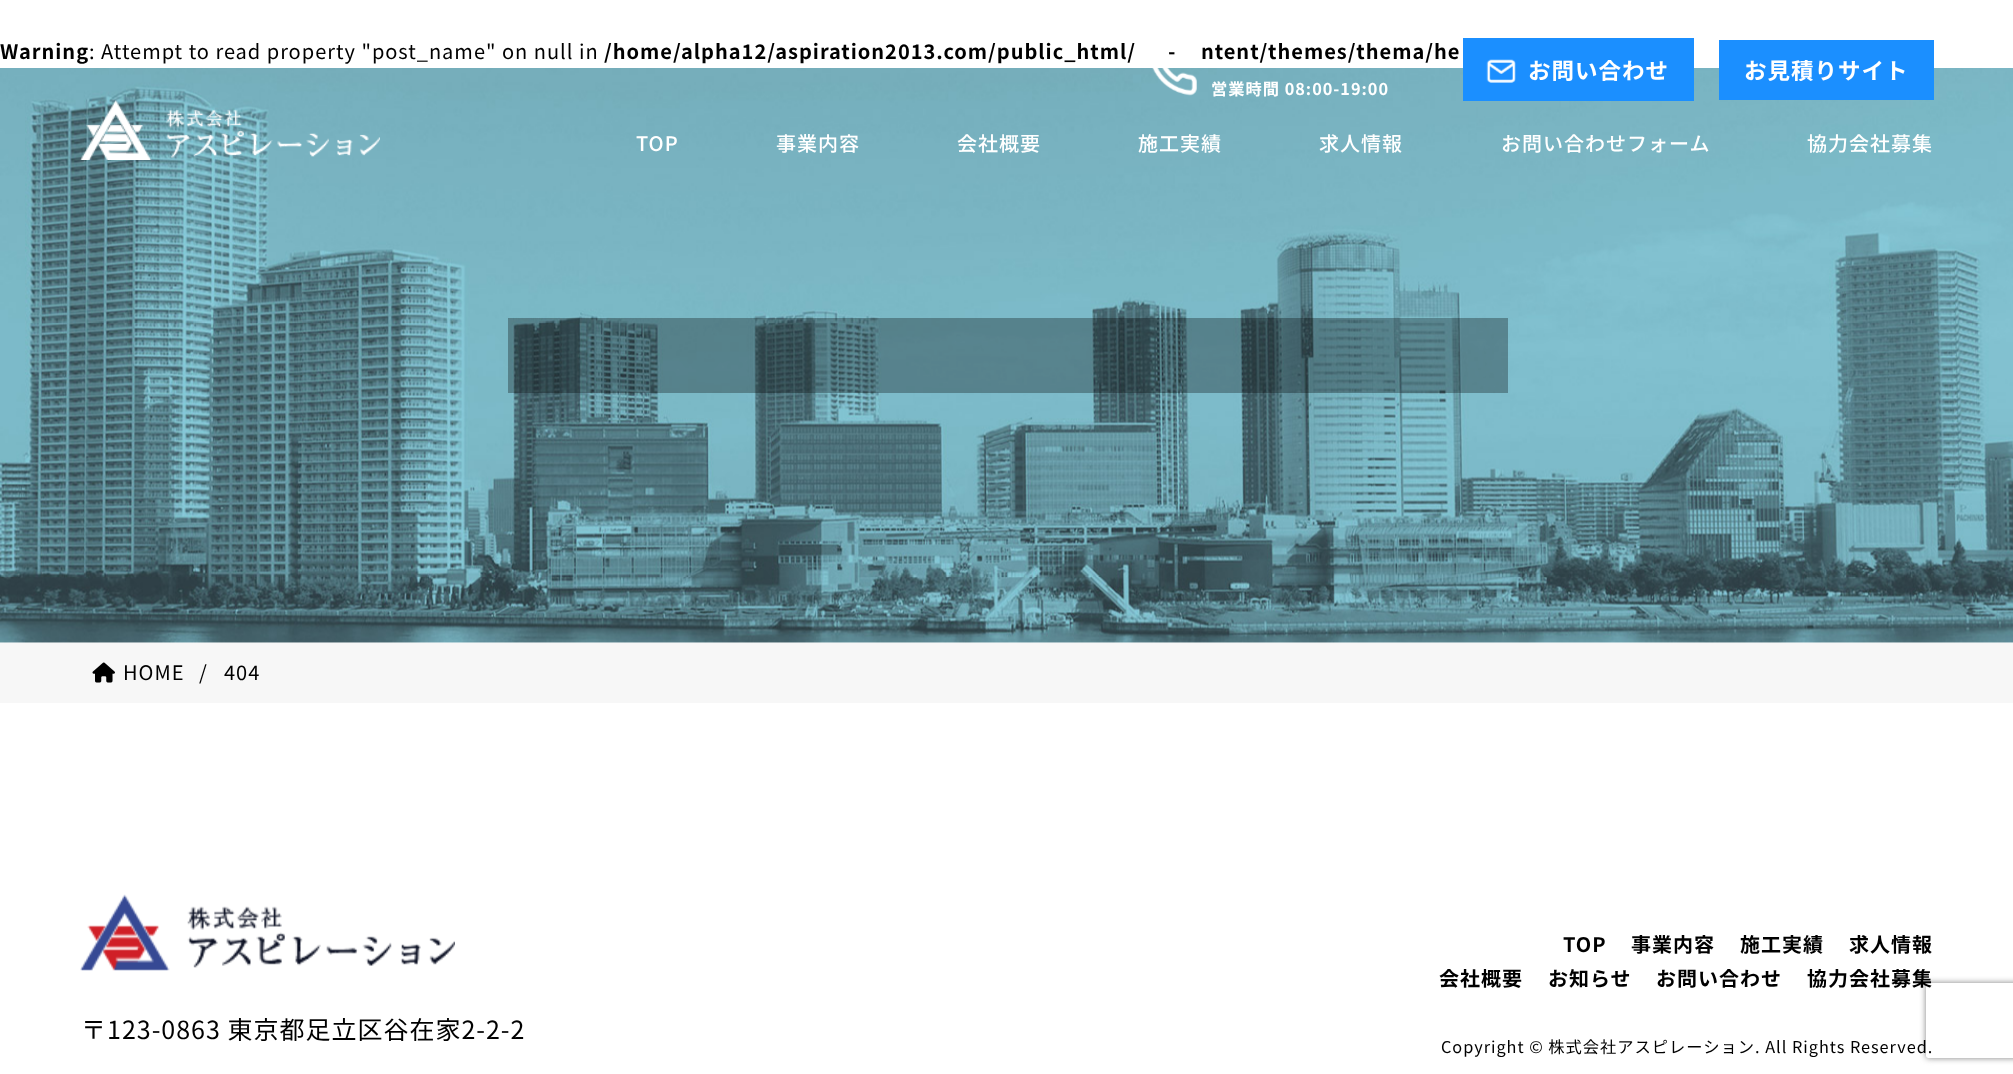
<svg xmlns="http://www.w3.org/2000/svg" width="2013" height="1074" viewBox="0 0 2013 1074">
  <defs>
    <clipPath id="clip1"><path d="M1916 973H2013V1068H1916ZM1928.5 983H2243.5C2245 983 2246 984 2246 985.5V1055.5C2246 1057 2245 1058 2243.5 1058H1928.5C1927 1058 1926 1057 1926 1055.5V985.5C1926 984 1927 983 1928.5 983Z" clip-rule="evenodd"/></clipPath>
  </defs>
  <rect width="100%" height="100%" fill="rgb(255,255,255)"/>
  <text x="0" y="59" font-family="Noto Sans JP" font-size="20" font-weight="bold" letter-spacing="1" fill="rgb(0,0,0)">Warning</text>
  <text x="89" y="59" font-family="Noto Sans JP" font-size="20" letter-spacing="1" fill="rgb(0,0,0)">: Attempt to read property "post_name" on null in</text>
  <g font-family="Noto Sans JP" font-size="20" font-weight="bold" letter-spacing="1" fill="rgb(0,0,0)">
    <text x="604" y="59">/home/alpha12/aspiration2013.com/public_html/</text>
    <text x="1168" y="59">-</text>
    <text x="1201" y="59">ntent/themes/thema/he</text>
  </g>
  <image x="0" y="68" width="2013" height="575" href="pic4.png"/>
  <image x="80" y="100" width="300" height="60" href="pic1.png"/>
  <rect x="1463" y="38" width="231" height="63" fill="rgb(27,143,255)"/>
  <image x="1486" y="59" width="30" height="24" href="pic2.png"/>
  <text x="1528" y="79" font-family="Noto Sans JP" font-size="22.5" font-weight="bold" letter-spacing="1" fill="rgb(255,255,255)">お問い合わせ</text>
  <rect x="1719" y="40" width="215" height="60" fill="rgb(27,143,255)"/>
  <text x="1744" y="79" font-family="Noto Sans JP" font-size="22.5" font-weight="bold" letter-spacing="1" fill="rgb(255,255,255)">お見積りサイト</text>
  <image x="1148" y="47" width="50" height="49" href="pic3.png"/>
  <text x="1211" y="95" font-family="Noto Sans JP" font-size="16.25" font-weight="bold" letter-spacing="1" fill="rgb(255,255,255)">営業時間 08:00-19:00</text>
  <g font-family="Noto Sans JP" font-size="20" font-weight="500" letter-spacing="1" fill="rgb(255,255,255)">
    <text x="636" y="151">TOP</text>
    <text x="776" y="151">事業内容</text>
    <text x="957" y="151">会社概要</text>
    <text x="1138" y="151">施工実績</text>
    <text x="1319" y="151">求人情報</text>
    <text x="1501" y="151">お問い合わせフォーム</text>
    <text x="1807" y="151">協力会社募集</text>
  </g>
  <rect x="508" y="318" width="1000" height="75" fill="rgba(0,0,0,0.3)"/>
  <rect x="0" y="643" width="2013" height="60" fill="rgb(247,247,247)"/>
  <image x="92" y="662" width="23" height="21" href="pic5.png"/>
  <g font-family="Noto Sans JP" font-size="20" letter-spacing="1" fill="rgb(0,0,0)">
    <text x="123" y="680">HOME</text>
    <text x="199" y="680">/</text>
    <text x="224" y="680">404</text>
  </g>
  <image x="80" y="894" width="375" height="77" href="pic6.png"/>
  <text x="81" y="1039" font-family="Noto Sans JP" font-size="25" letter-spacing="1" fill="rgb(0,0,0)">〒123-0863 東京都足立区谷在家2-2-2</text>
  <g font-family="Noto Sans JP" font-size="20" font-weight="bold" letter-spacing="1" fill="rgb(0,0,0)">
    <text x="1563" y="952">TOP</text>
    <text x="1631" y="952">事業内容</text>
    <text x="1740" y="952">施工実績</text>
    <text x="1849" y="952">求人情報</text>
    <text x="1439" y="986">会社概要</text>
    <text x="1548" y="986">お知らせ</text>
    <text x="1656" y="986">お問い合わせ</text>
  </g>
  <g clip-path="url(#clip1)">
    <rect x="1926" y="983" width="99" height="75" rx="2.5" fill="rgb(128,128,128)" filter="blur(3px)"/>
  </g>
  <text x="1807" y="986" font-family="Noto Sans JP" font-size="20" font-weight="bold" letter-spacing="1" fill="rgb(0,0,0)">協力会社募集</text>
  <text x="1441" y="1053" font-family="Noto Sans JP" font-size="16.25" letter-spacing="1" fill="rgb(0,0,0)">Copyright © 株式会社アスピレーション. All Rights Reserved.</text>
</svg>
